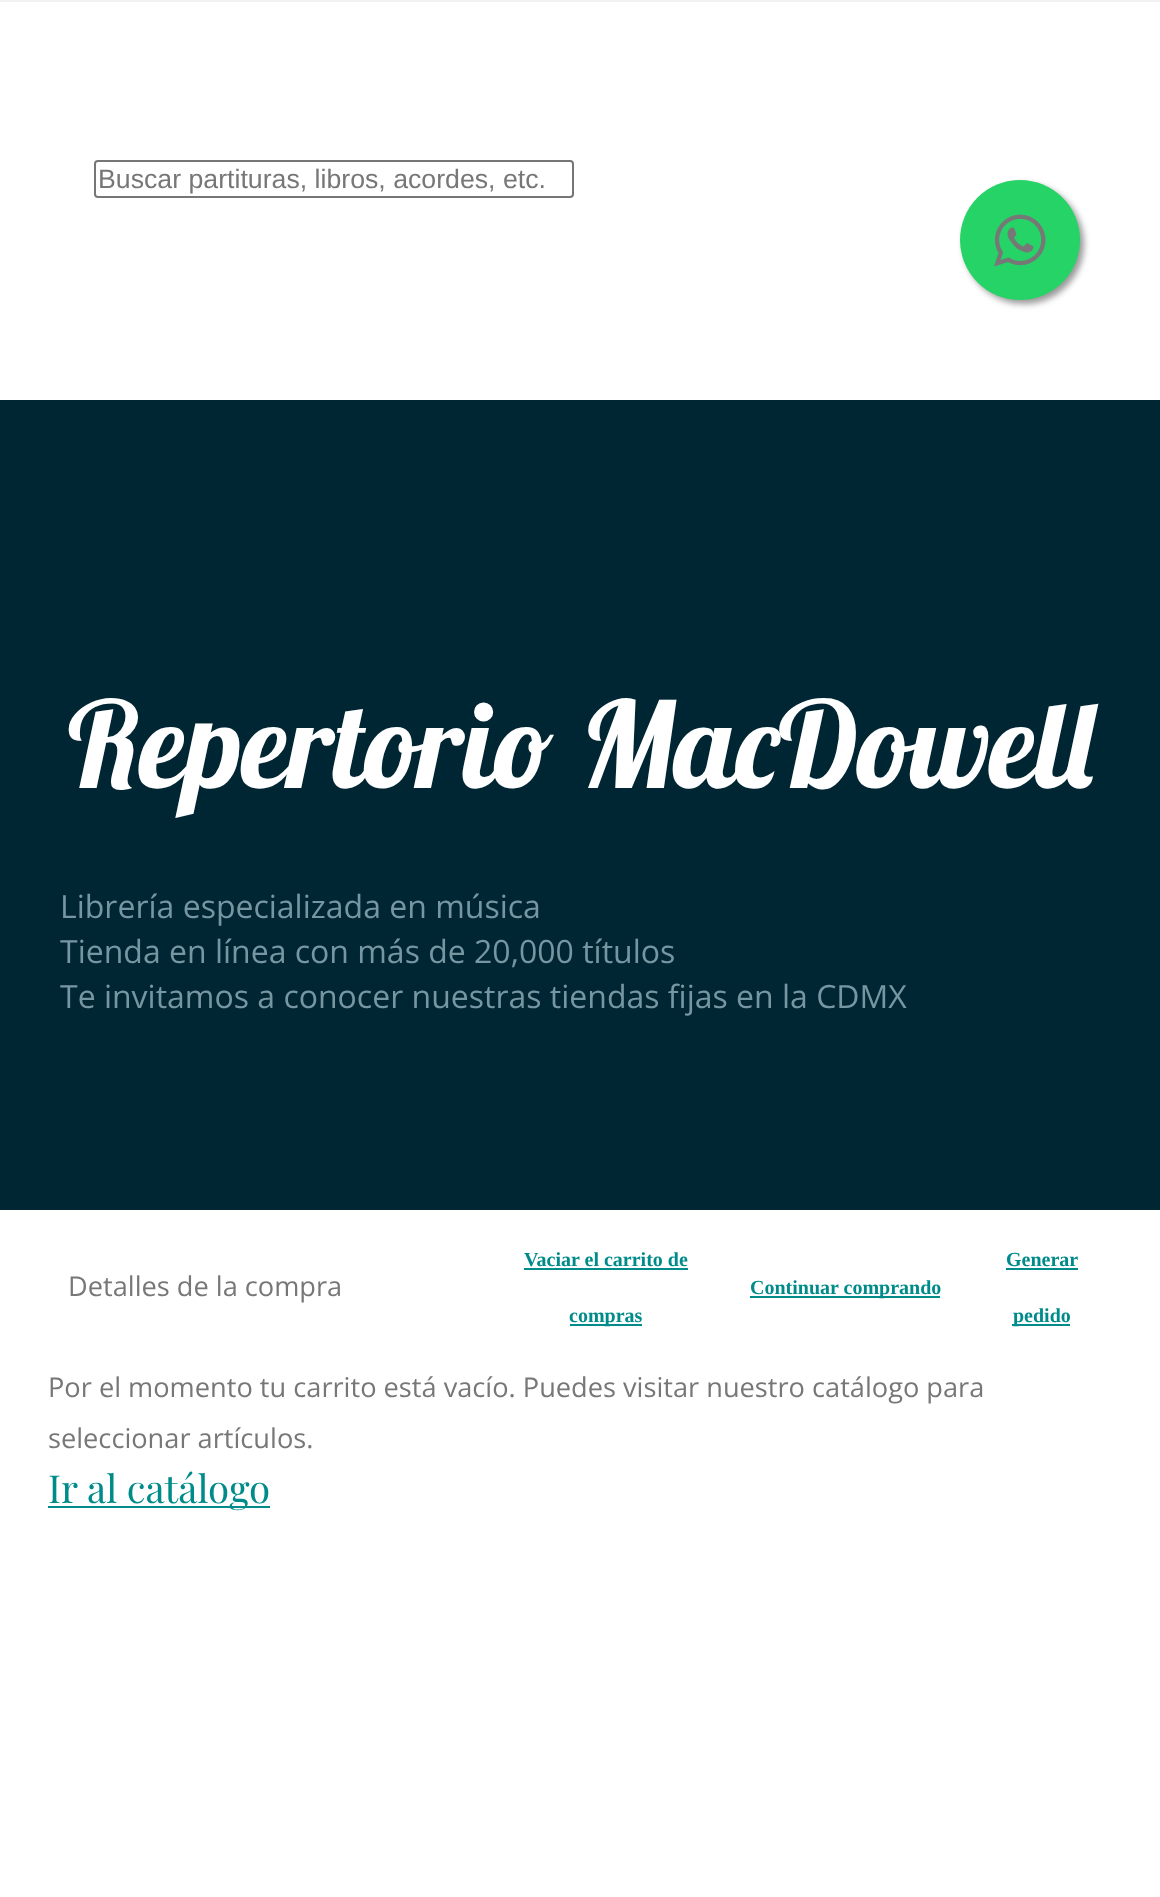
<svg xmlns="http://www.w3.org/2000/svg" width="1160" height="1897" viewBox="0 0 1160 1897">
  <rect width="100%" height="100%" fill="rgb(255,255,255)"/>
  <rect x="0" y="0" width="1160" height="2" fill="rgb(242,242,242)"/>
  <rect x="95" y="161" width="478" height="36" rx="3" fill="none" stroke="rgb(118,118,118)" stroke-width="2"/>
  <text x="98" y="188" font-family="Liberation Sans" font-size="26.7" fill="rgb(119,119,119)">Buscar partituras, libros, acordes, etc.</text>
  <rect x="964" y="184" width="120" height="120" rx="60" fill="rgb(153,153,153)" filter="blur(3px)"/>
  <circle cx="1020" cy="240" r="60" fill="rgb(37,211,102)"/>
  <image x="994" y="214" width="52" height="53" href="pic1.png"/>
  <rect x="0" y="400" width="1160" height="810" fill="rgb(0,38,51)"/>
  <text x="68" y="788" font-family="Lobster" font-size="120" fill="rgb(255,255,255)">Repertorio MacDowell</text>
  <g font-family="Open Sans" font-size="32" fill="rgb(118,151,162)">
    <text>
      <tspan x="60" y="918">Librería especializada en música</tspan>
      <tspan x="60" y="963">Tienda en línea con más de 20,000 títulos</tspan>
      <tspan x="60" y="1008">Te invitamos a conocer nuestras tiendas fijas en la CDMX</tspan>
    </text>
  </g>
  <text x="68" y="1296" font-family="Open Sans" font-size="27.2" fill="rgb(119,119,119)">Detalles de la compra</text>
  <text x="524" y="1266" font-family="Liberation Serif" font-size="20" font-weight="bold" fill="rgb(0,139,139)">Vaciar el carrito de</text>
  <rect x="524" y="1268" width="164" height="2" fill="rgb(0,139,139)"/>
  <rect x="570" y="1324" width="72" height="2" fill="rgb(0,139,139)"/>
  <text x="569" y="1322" font-family="Liberation Serif" font-size="20" font-weight="bold" fill="rgb(0,139,139)">compras</text>
  <rect x="750" y="1296" width="190" height="2" fill="rgb(0,139,139)"/>
  <g font-family="Liberation Serif" font-size="20" font-weight="bold" fill="rgb(0,139,139)">
    <text x="750" y="1294">Continuar comprando</text>
    <text x="1006" y="1266">Generar</text>
  </g>
  <rect x="1006" y="1268" width="72" height="2" fill="rgb(0,139,139)"/>
  <rect x="1012" y="1324" width="58" height="2" fill="rgb(0,139,139)"/>
  <text x="1013" y="1322" font-family="Liberation Serif" font-size="20" font-weight="bold" fill="rgb(0,139,139)">pedido</text>
  <g font-family="Open Sans" font-size="27.2" fill="rgb(119,119,119)">
    <text>
      <tspan x="48" y="1397">Por el momento tu carrito está vacío. Puedes visitar nuestro catálogo para</tspan>
      <tspan x="48" y="1448">seleccionar artículos.</tspan>
    </text>
  </g>
  <rect x="48" y="1506" width="222" height="2" fill="rgb(0,139,139)"/>
  <text x="48" y="1503" font-family="Playfair Display" font-size="38.5" fill="rgb(0,139,139)">Ir al catálogo</text>
</svg>
